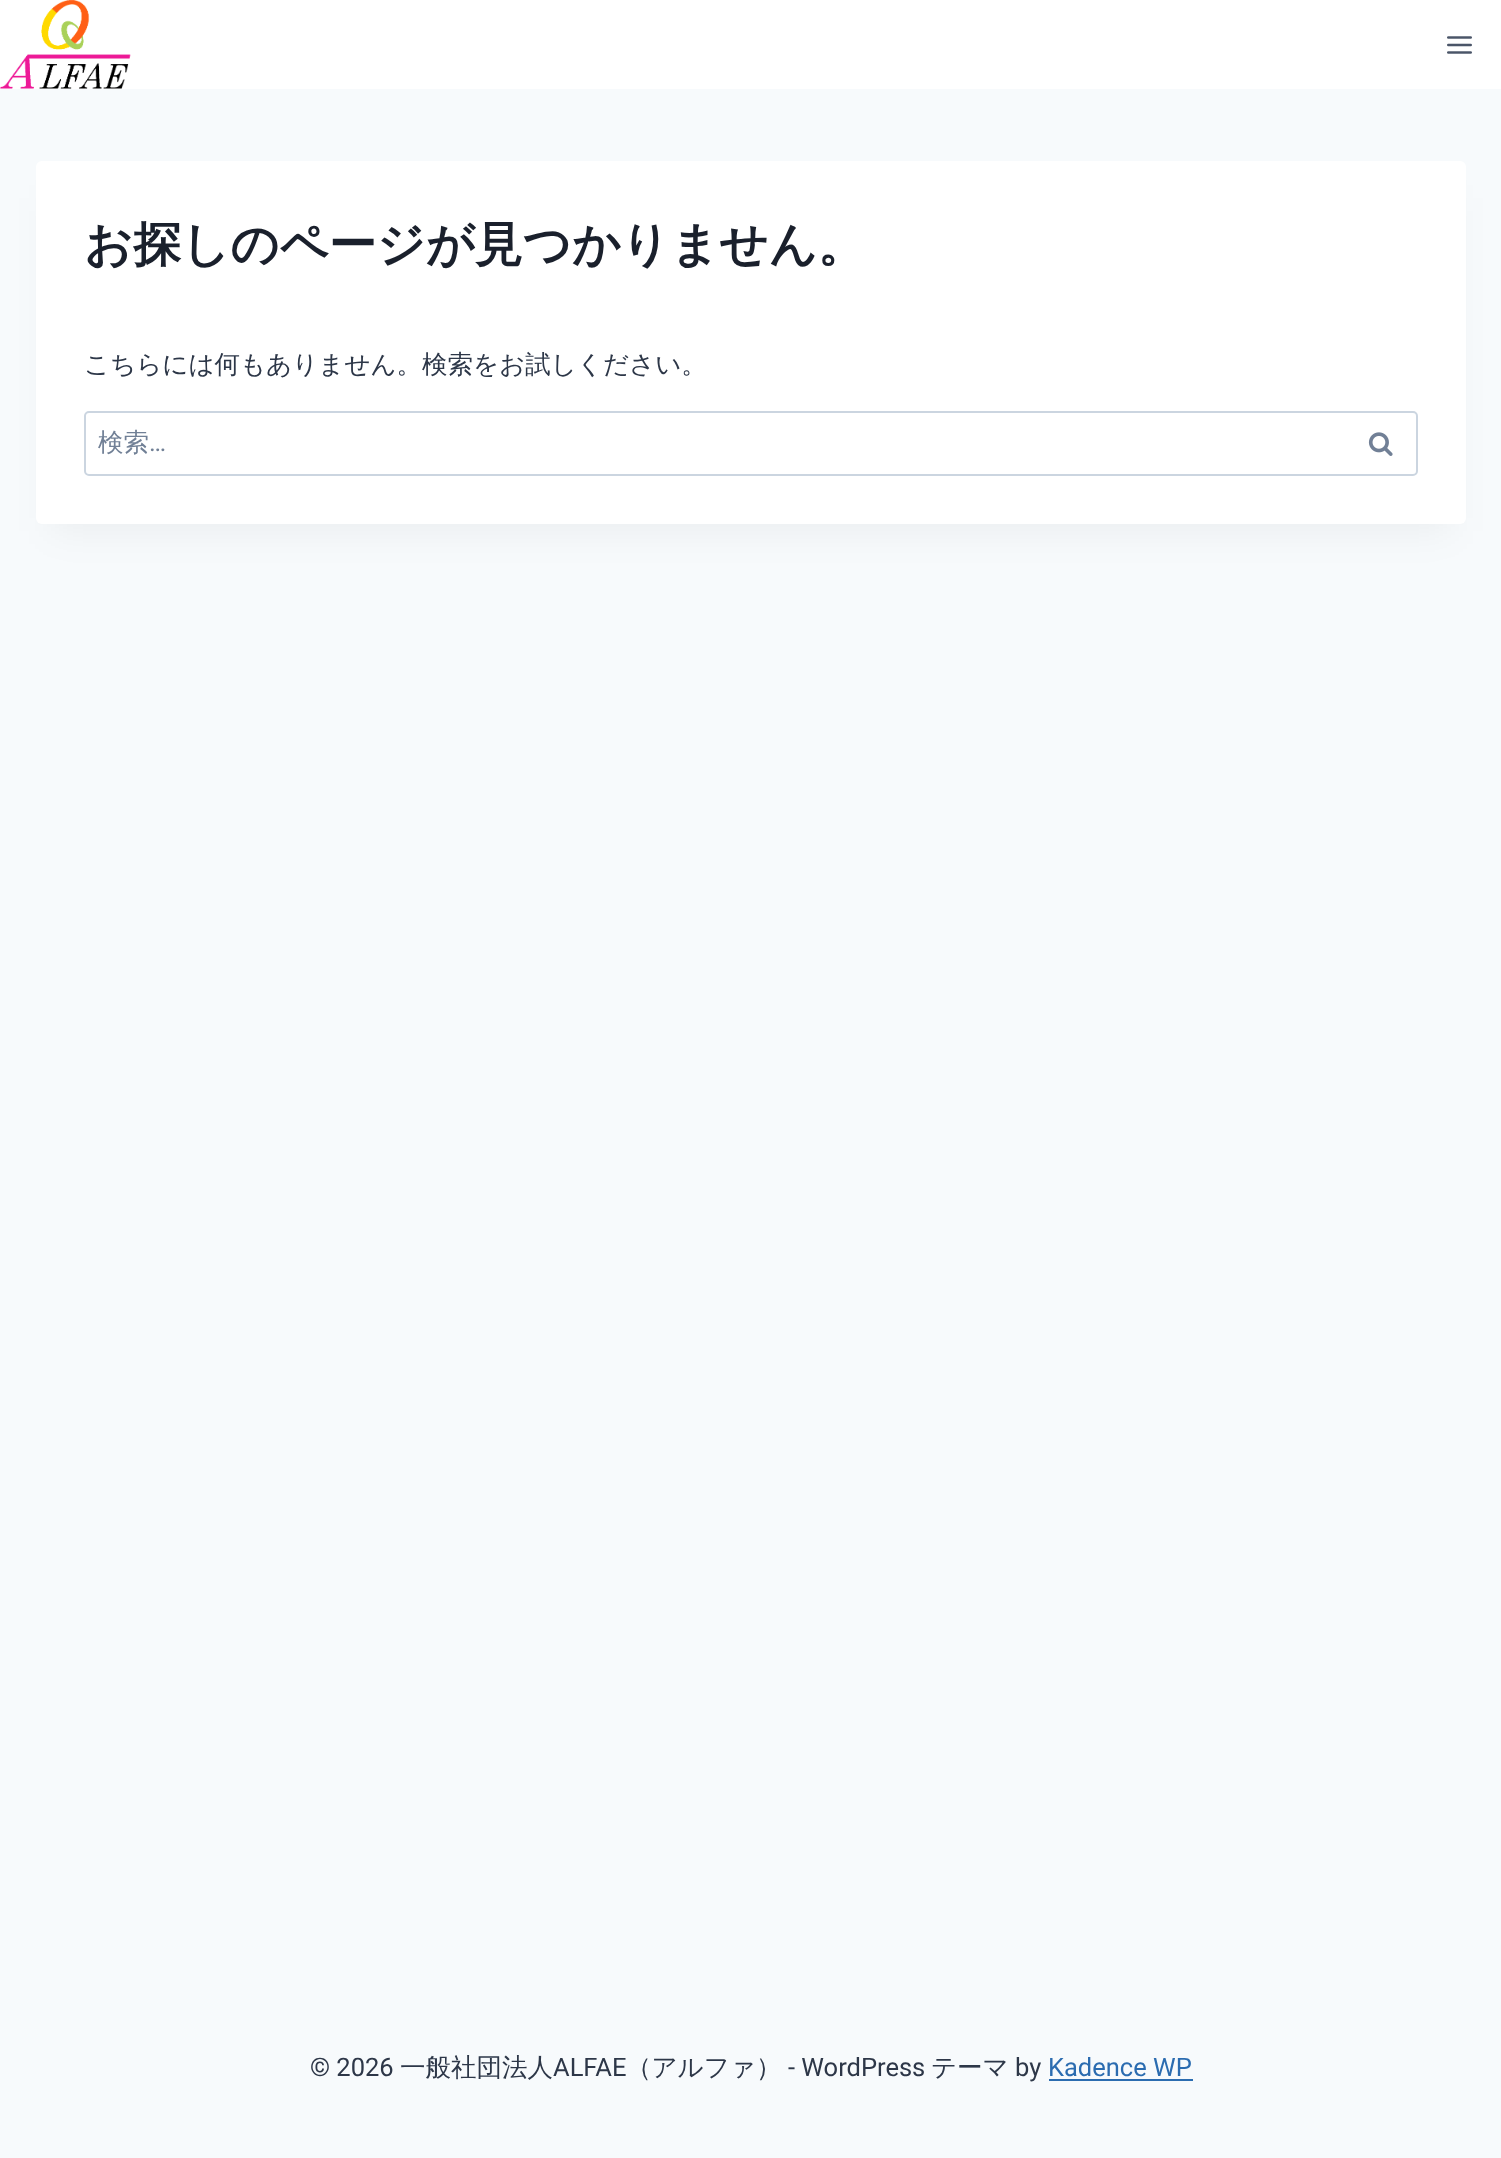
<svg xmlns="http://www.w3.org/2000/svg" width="1501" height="2158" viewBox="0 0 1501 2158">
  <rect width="100%" height="100%" fill="rgb(247,250,252)"/>
  <rect x="0" y="0" width="1501" height="89" fill="rgb(255,255,255)"/>
  <image x="0" y="0" width="131" height="89" href="pic1.png"/>
  <image x="1447" y="36" width="25" height="18" href="pic2.png"/>
  <rect x="51" y="198" width="1400" height="333" fill="rgba(0,0,0,0.05)" filter="blur(19px)"/>
  <rect x="36" y="161" width="1430" height="363" rx="6" fill="rgb(255,255,255)"/>
  <text x="84" y="261" font-family="WenQuanYi Zen Hei" font-size="48" font-weight="bold" fill="rgb(26,32,44)">お探しのページが見つかりません。</text>
  <text x="84" y="373" font-family="WenQuanYi Zen Hei" font-size="25.5" font-weight="500" fill="rgb(45,55,72)">こちらには何もありません。検索をお試しください。</text>
  <rect x="85" y="412" width="1332" height="63" rx="4" fill="none" stroke="rgb(203,213,224)" stroke-width="2"/>
  <text x="98" y="451" font-family="WenQuanYi Zen Hei" font-size="25.5" font-weight="500" fill="rgb(113,128,150)">検索</text>
  <text x="149" y="451" font-family="Roboto" font-size="25.5" fill="rgb(113,128,150)">…</text>
  <image x="1368" y="432" width="25" height="24" href="pic3.png"/>
  <text x="310" y="2076" font-family="Roboto" font-size="25.5" fill="rgb(45,55,72)">© 2026</text>
  <text x="400" y="2076" font-family="WenQuanYi Zen Hei" font-size="25.5" font-weight="500" fill="rgb(45,55,72)">一般社団法人</text>
  <text x="553" y="2076" font-family="Roboto" font-size="25.5" fill="rgb(45,55,72)">ALFAE</text>
  <text x="626" y="2076" font-family="WenQuanYi Zen Hei" font-size="25.5" font-weight="500" fill="rgb(45,55,72)">（アルファ）</text>
  <text x="788" y="2076" font-family="Roboto" font-size="25.5" fill="rgb(45,55,72)">- WordPress</text>
  <text x="931" y="2076" font-family="WenQuanYi Zen Hei" font-size="25.5" font-weight="500" fill="rgb(45,55,72)">テーマ</text>
  <text x="1015" y="2076" font-family="Roboto" font-size="25.5" fill="rgb(45,55,72)">by</text>
  <text x="1048" y="2076" font-family="Roboto" font-size="25.5" fill="rgb(43,108,176)">Kadence WP</text>
  <rect x="1049" y="2079" width="144" height="2" fill="rgb(43,108,176)"/>
</svg>
